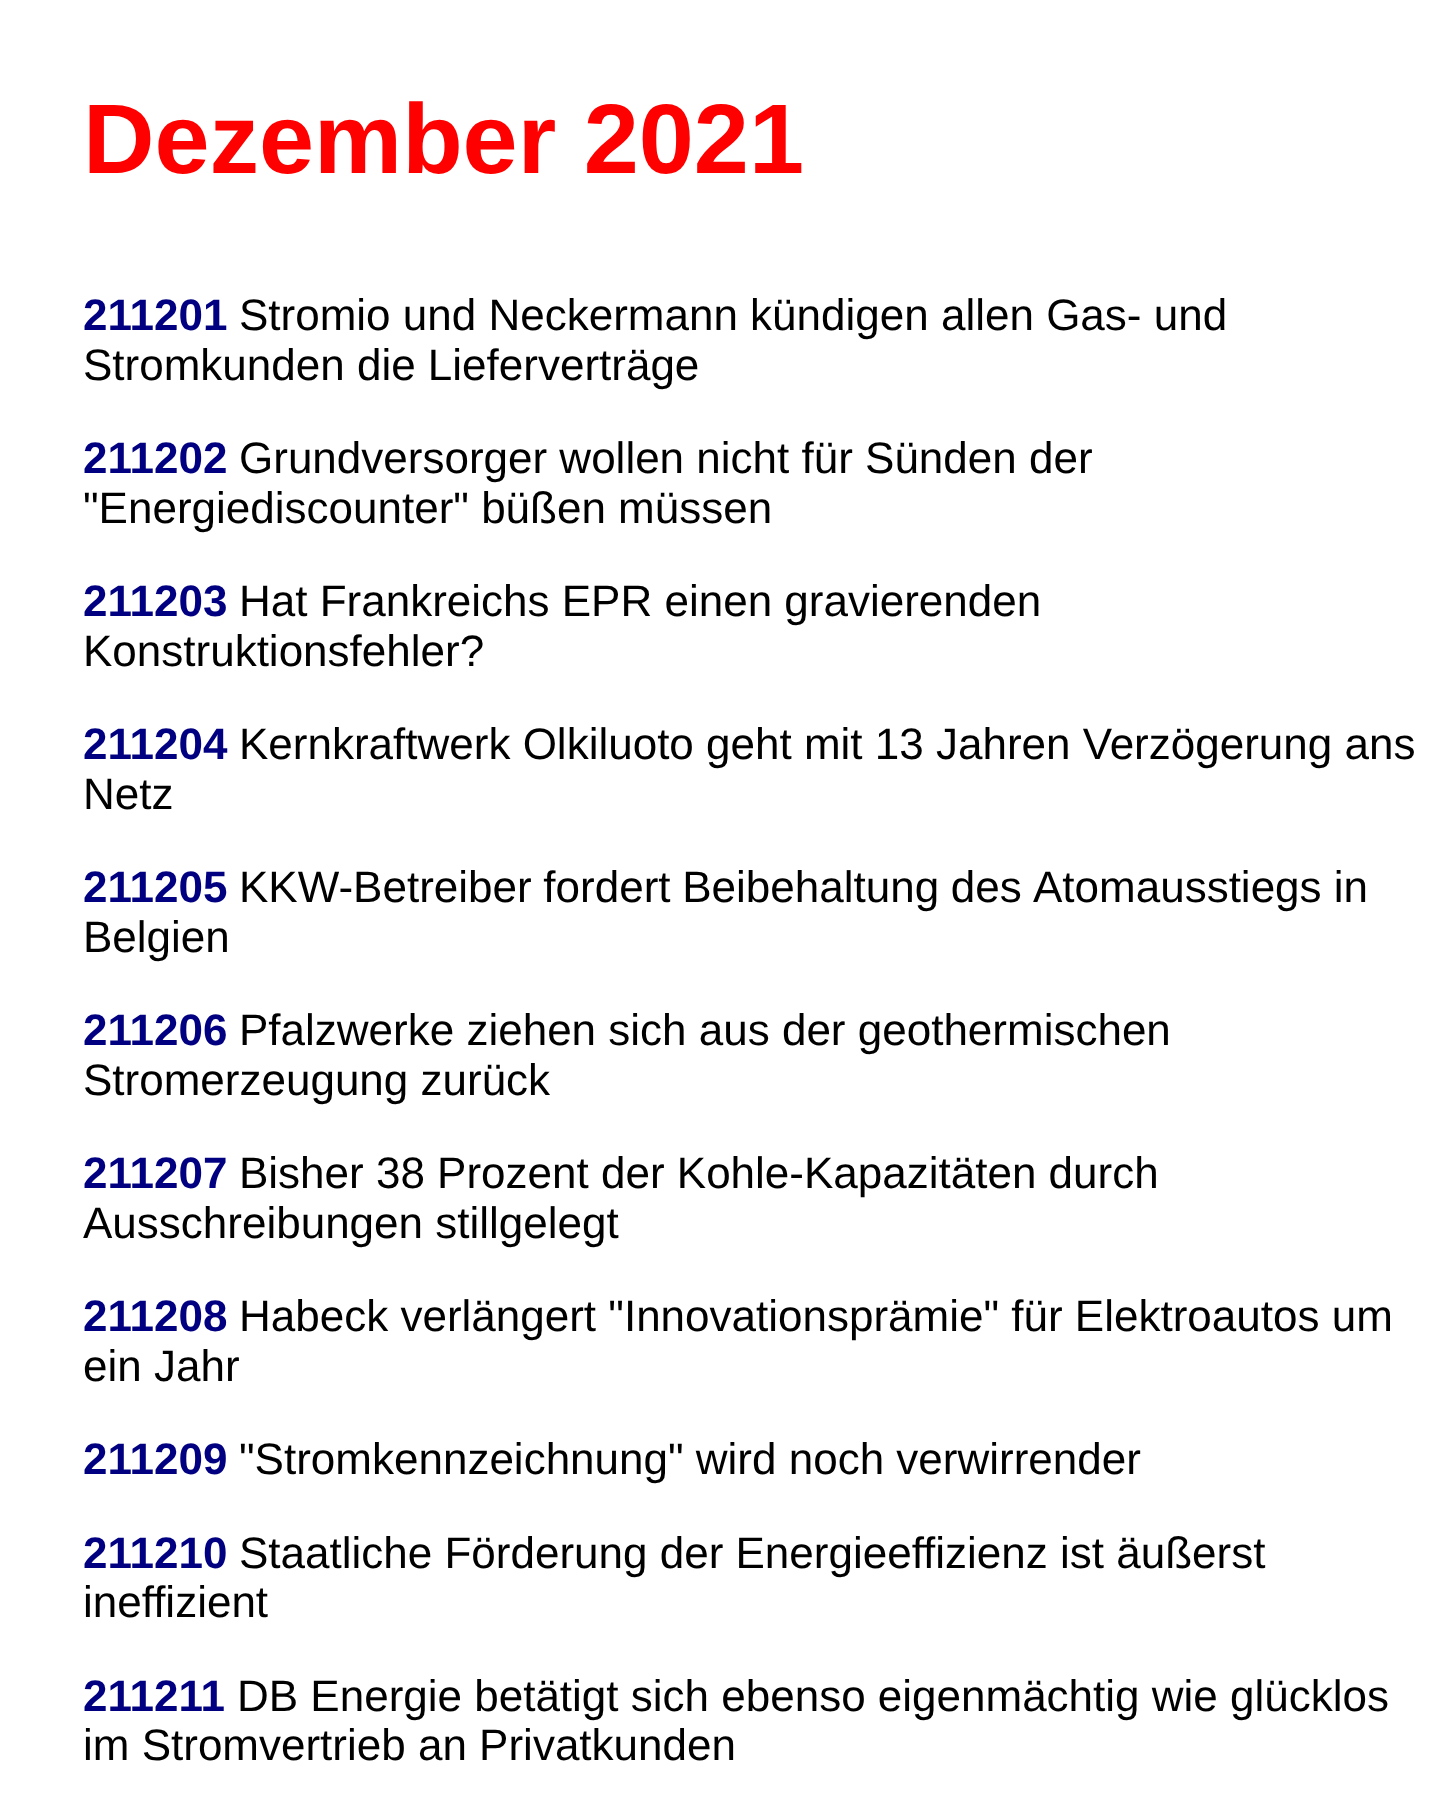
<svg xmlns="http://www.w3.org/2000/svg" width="1445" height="1796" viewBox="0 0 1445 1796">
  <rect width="100%" height="100%" fill="rgb(255,255,255)"/>
  <text x="83" y="173" font-family="Liberation Sans" font-size="99" font-weight="bold" fill="rgb(255,0,0)">Dezember 2021</text>
  <text x="83" y="330" font-family="Liberation Sans" font-size="44" font-weight="bold" fill="rgb(0,0,128)">211201</text>
  <g font-family="Liberation Sans" font-size="44" fill="rgb(0,0,0)">
    <text x="239" y="330">Stromio und Neckermann kündigen allen Gas- und</text>
    <text x="83" y="380">Stromkunden die Lieferverträge</text>
  </g>
  <text x="83" y="473" font-family="Liberation Sans" font-size="44" font-weight="bold" fill="rgb(0,0,128)">211202</text>
  <g font-family="Liberation Sans" font-size="44" fill="rgb(0,0,0)">
    <text x="239" y="473">Grundversorger wollen nicht für Sünden der</text>
    <text x="83" y="523">"Energiediscounter" büßen müssen</text>
  </g>
  <text x="83" y="616" font-family="Liberation Sans" font-size="44" font-weight="bold" fill="rgb(0,0,128)">211203</text>
  <g font-family="Liberation Sans" font-size="44" fill="rgb(0,0,0)">
    <text x="239" y="616">Hat Frankreichs EPR einen gravierenden</text>
    <text x="83" y="666">Konstruktionsfehler?</text>
  </g>
  <text x="83" y="759" font-family="Liberation Sans" font-size="44" font-weight="bold" fill="rgb(0,0,128)">211204</text>
  <g font-family="Liberation Sans" font-size="44" fill="rgb(0,0,0)">
    <text x="239" y="759">Kernkraftwerk Olkiluoto geht mit 13 Jahren Verzögerung ans</text>
    <text x="83" y="809">Netz</text>
  </g>
  <text x="83" y="902" font-family="Liberation Sans" font-size="44" font-weight="bold" fill="rgb(0,0,128)">211205</text>
  <g font-family="Liberation Sans" font-size="44" fill="rgb(0,0,0)">
    <text x="239" y="902" word-spacing="-0.5">KKW-Betreiber fordert Beibehaltung des</text>
    <text x="1033" y="902">Atomausstiegs in</text>
    <text x="83" y="952">Belgien</text>
  </g>
  <text x="83" y="1045" font-family="Liberation Sans" font-size="44" font-weight="bold" fill="rgb(0,0,128)">211206</text>
  <g font-family="Liberation Sans" font-size="44" fill="rgb(0,0,0)">
    <text x="239" y="1045">Pfalzwerke ziehen sich aus der geothermischen</text>
    <text x="83" y="1095">Stromerzeugung zurück</text>
  </g>
  <text x="83" y="1188" font-family="Liberation Sans" font-size="44" font-weight="bold" fill="rgb(0,0,128)">211207</text>
  <g font-family="Liberation Sans" font-size="44" fill="rgb(0,0,0)">
    <text x="239" y="1188">Bisher 38 Prozent der Kohle-Kapazitäten durch</text>
    <text x="83" y="1238">Ausschreibungen stillgelegt</text>
  </g>
  <text x="83" y="1331" font-family="Liberation Sans" font-size="44" font-weight="bold" fill="rgb(0,0,128)">211208</text>
  <g font-family="Liberation Sans" font-size="44" fill="rgb(0,0,0)">
    <text x="239" y="1331">Habeck verlängert "Innovationsprämie" für Elektroautos um</text>
    <text x="83" y="1381">ein Jahr</text>
  </g>
  <text x="83" y="1474" font-family="Liberation Sans" font-size="44" font-weight="bold" fill="rgb(0,0,128)">211209</text>
  <text x="239" y="1474" font-family="Liberation Sans" font-size="44" fill="rgb(0,0,0)">"Stromkennzeichnung" wird noch verwirrender</text>
  <text x="83" y="1568" font-family="Liberation Sans" font-size="44" font-weight="bold" fill="rgb(0,0,128)">211210</text>
  <g font-family="Liberation Sans" font-size="44" fill="rgb(0,0,0)">
    <text x="239" y="1568">Staatliche Förderung der Energieeffizienz ist äußerst</text>
    <text x="83" y="1617">ineffizient</text>
  </g>
  <text x="83" y="1711" font-family="Liberation Sans" font-size="44" font-weight="bold" fill="rgb(0,0,128)">211211</text>
  <g font-family="Liberation Sans" font-size="44" fill="rgb(0,0,0)">
    <text x="237" y="1711">DB Energie betätigt sich ebenso eigenmächtig wie glücklos</text>
    <text x="83" y="1760">im Stromvertrieb an Privatkunden</text>
  </g>
</svg>
